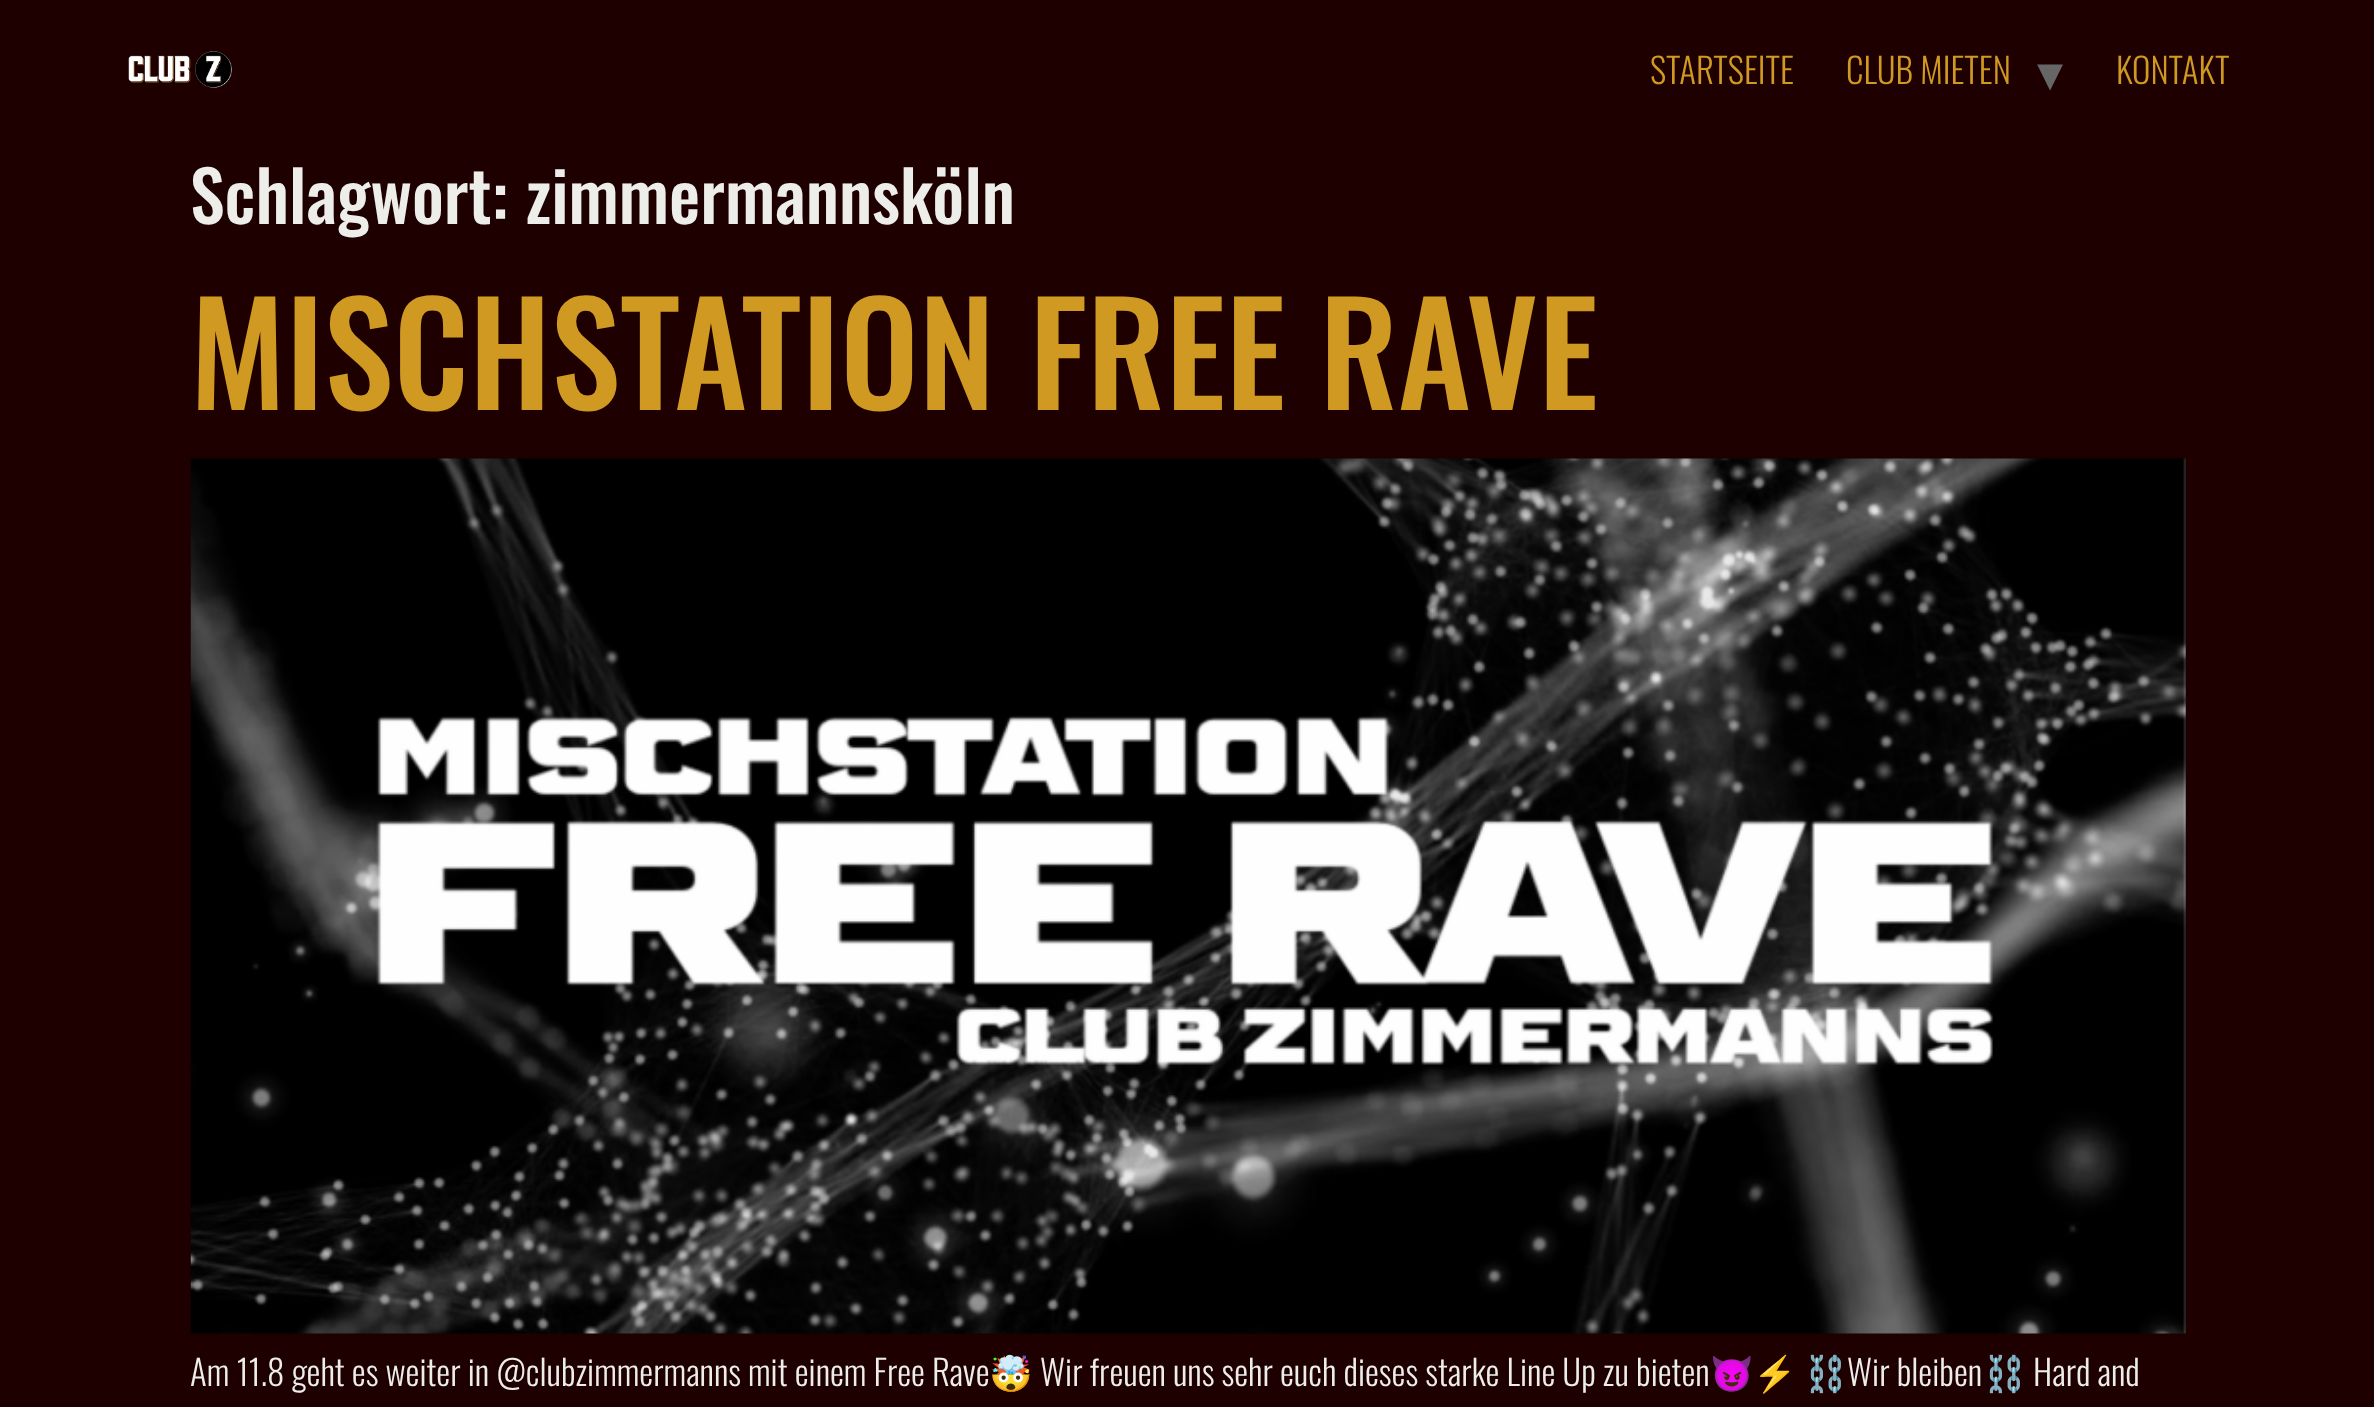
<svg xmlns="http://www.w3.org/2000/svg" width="2374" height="1407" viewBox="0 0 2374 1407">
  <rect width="100%" height="100%" fill="rgb(30,0,0)"/>
  <image x="128" y="51" width="104" height="37" href="pic1.png"/>
  <g font-family="Oswald" font-size="35" font-weight="300" fill="rgb(207,153,34)">
    <text x="1650" y="84">STARTSEITE</text>
    <text x="1846" y="84">CLUB MIETEN</text>
  </g>
  <text x="2037" y="91" font-family="DejaVu Sans" font-size="52" fill="rgb(102,102,102)">▾</text>
  <text x="2116" y="84" font-family="Oswald" font-size="35" font-weight="300" fill="rgb(207,153,34)">KONTAKT</text>
  <text x="190" y="224" font-family="Oswald" font-size="70" font-weight="500" fill="rgb(237,237,234)">Schlagwort: zimmermannsköln</text>
  <text x="190" y="410" font-family="Oswald" font-size="140" font-weight="500" fill="rgb(207,153,34)">MISCHSTATION FREE RAVE</text>
  <image x="190" y="458" width="1996" height="876" href="pic2.png"/>
  <text x="190" y="1386" font-family="Oswald" font-size="35" font-weight="300" fill="rgb(237,237,234)">Am 11.8 geht es weiter in @clubzimmermanns mit einem Free Rave</text>
  <text x="989" y="1386" font-family="Noto Color Emoji" font-size="35" fill="rgb(237,237,234)">🤯</text>
  <text x="1040" y="1386" font-family="Oswald" font-size="35" font-weight="300" fill="rgb(237,237,234)">Wir freuen uns sehr euch dieses starke Line Up zu bieten</text>
  <g font-family="Noto Color Emoji" font-size="35" fill="rgb(237,237,234)">
    <text x="1710" y="1386">😈⚡️</text>
    <text x="1804" y="1386">⛓️</text>
  </g>
  <text x="1847" y="1386" font-family="Oswald" font-size="35" font-weight="300" fill="rgb(237,237,234)">Wir bleiben</text>
  <text x="1983" y="1386" font-family="Noto Color Emoji" font-size="35" fill="rgb(237,237,234)">⛓️</text>
  <text x="2033" y="1386" font-family="Oswald" font-size="35" font-weight="300" fill="rgb(237,237,234)">Hard and</text>
</svg>
